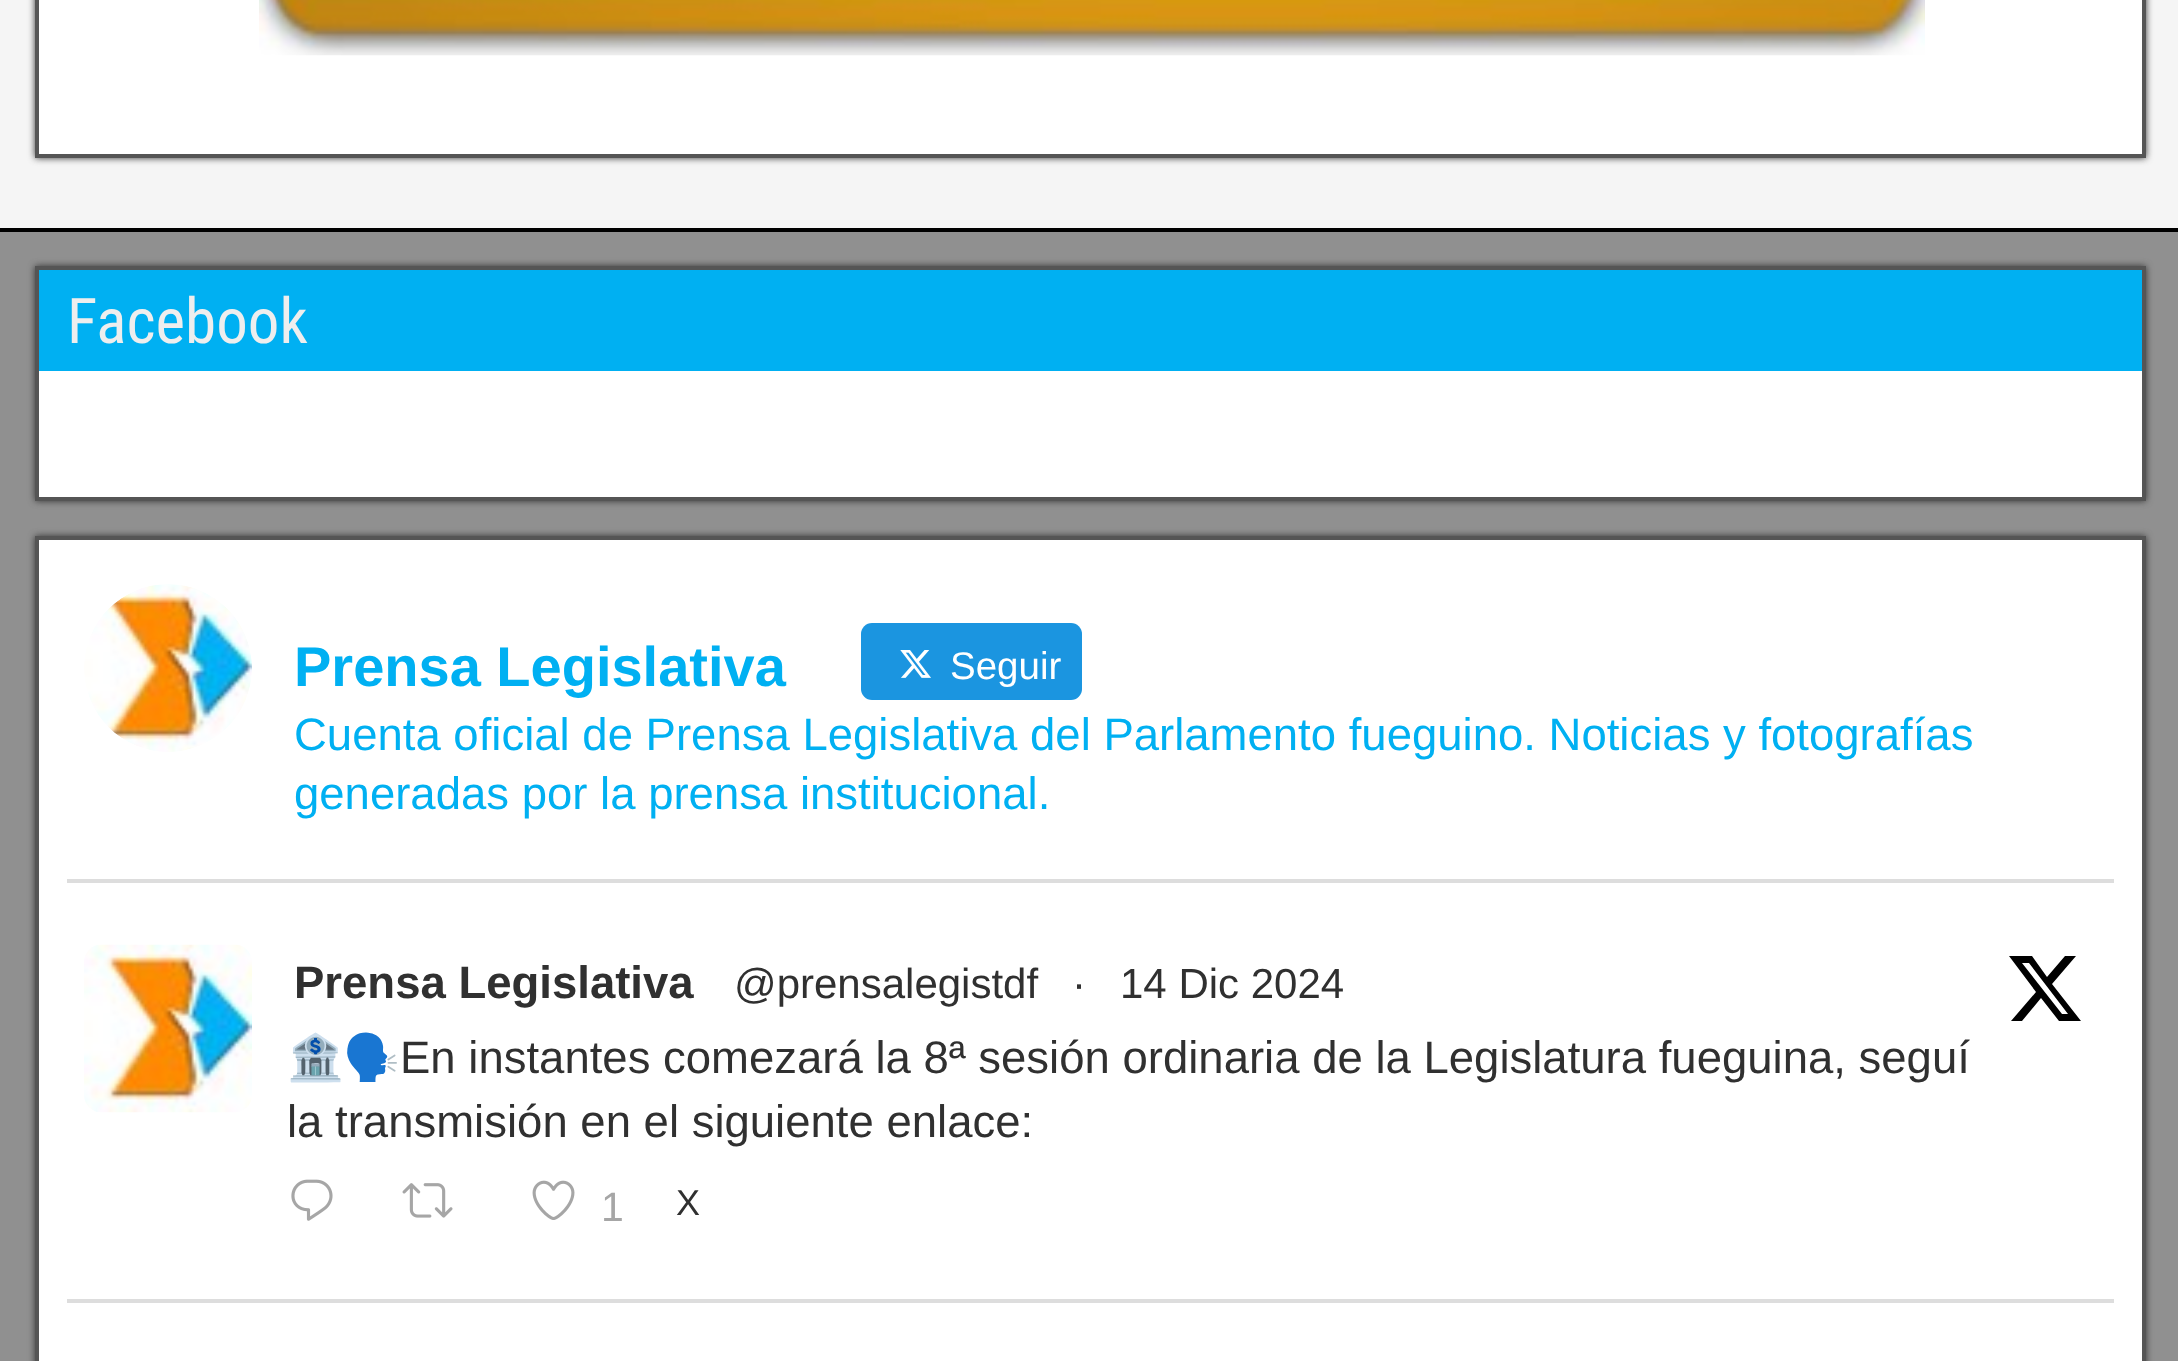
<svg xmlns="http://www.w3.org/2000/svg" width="2178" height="1361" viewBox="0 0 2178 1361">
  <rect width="100%" height="100%" fill="rgb(245,245,245)"/>
  <rect x="35" y="-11" width="2111" height="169" fill="rgb(51,51,51)" filter="blur(3.5px)"/>
  <rect x="37" y="-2" width="2107" height="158" fill="rgb(255,255,255)" stroke="rgb(85,85,85)" stroke-width="4"/>
  <image x="259" y="0" width="1666" height="56" href="pic1.png"/>
  <rect x="0" y="232" width="2178" height="1129" fill="rgb(144,144,144)"/>
  <rect x="0" y="228" width="2178" height="4" fill="rgb(0,0,0)"/>
  <rect x="35" y="266" width="2111" height="235" fill="rgb(51,51,51)" filter="blur(3.5px)"/>
  <rect x="39" y="371" width="2103" height="126" fill="rgb(255,255,255)"/>
  <rect x="37" y="268" width="2107" height="231" fill="none" stroke="rgb(85,85,85)" stroke-width="4"/>
  <rect x="39" y="270" width="2103" height="101" fill="rgb(0,176,242)"/>
  <text x="67" y="343" font-family="Roboto Condensed" font-size="63" fill="rgb(238,238,238)">Facebook</text>
  <rect x="35" y="536" width="2111" height="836" fill="rgb(51,51,51)" filter="blur(3.5px)"/>
  <rect x="37" y="538" width="2107" height="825" fill="rgb(255,255,255)" stroke="rgb(85,85,85)" stroke-width="4"/>
  <rect x="67" y="879" width="2047" height="4" fill="rgb(221,221,221)"/>
  <image x="84" y="584" width="168" height="168" href="pic2.png"/>
  <text x="294" y="686" font-family="Liberation Sans" font-size="56" font-weight="bold" fill="rgb(0,176,242)">Prensa Legislativa</text>
  <rect x="861" y="623" width="221" height="77" rx="11" fill="rgb(27,149,224)"/>
  <image x="900" y="650" width="31" height="28" href="pic3.png"/>
  <text x="950" y="679" font-family="Liberation Sans" font-size="38.5" fill="rgb(255,255,255)">Seguir</text>
  <g font-family="Liberation Sans" font-size="45.5" fill="rgb(0,176,242)">
    <text>
      <tspan x="294" y="750">Cuenta oficial de Prensa Legislativa del Parlamento fueguino. Noticias y fotografías</tspan>
      <tspan x="294" y="809">generadas por la prensa institucional.</tspan>
    </text>
  </g>
  <rect x="67" y="1299" width="2047" height="4" fill="rgb(221,221,221)"/>
  <image x="84" y="944" width="168" height="169" href="pic4.png"/>
  <text x="294" y="998" font-family="Liberation Sans" font-size="45.5" font-weight="bold" fill="rgb(48,48,48)">Prensa Legislativa</text>
  <g font-family="Liberation Sans" font-size="42" fill="rgb(48,48,48)">
    <text x="734" y="998">@prensalegistdf</text>
    <text x="1072" y="998">·</text>
    <text x="1120" y="998">14 Dic 2024</text>
  </g>
  <path d="M2065 956H2076L2052 984L2081 1021H2059L2041 998L2022 1021H2011L2036 992L2009 956H2032L2047 977ZM2062 1014H2068L2029 963H2022Z" fill="rgb(0,0,0)"/>
  <text x="287" y="1073" font-family="Noto Color Emoji" font-size="45.5" fill="rgb(48,48,48)">🏦🗣️</text>
  <g font-family="Liberation Sans" font-size="45.5" fill="rgb(48,48,48)">
    <text x="400" y="1073">En instantes comezará la 8ª sesión ordinaria de la Legislatura fueguina, seguí</text>
    <text x="287" y="1137">la transmisión en el siguiente enlace:</text>
  </g>
  <image x="291" y="1179" width="42" height="42" href="pic5.png"/>
  <image x="402" y="1183" width="51" height="35" href="pic6.png"/>
  <image x="532" y="1180" width="43" height="40" href="pic7.png"/>
  <text x="601" y="1221" font-family="Liberation Sans" font-size="41" fill="rgb(166,166,166)">1</text>
  <text x="676" y="1215" font-family="Liberation Sans" font-size="36" fill="rgb(48,48,48)">X</text>
</svg>
